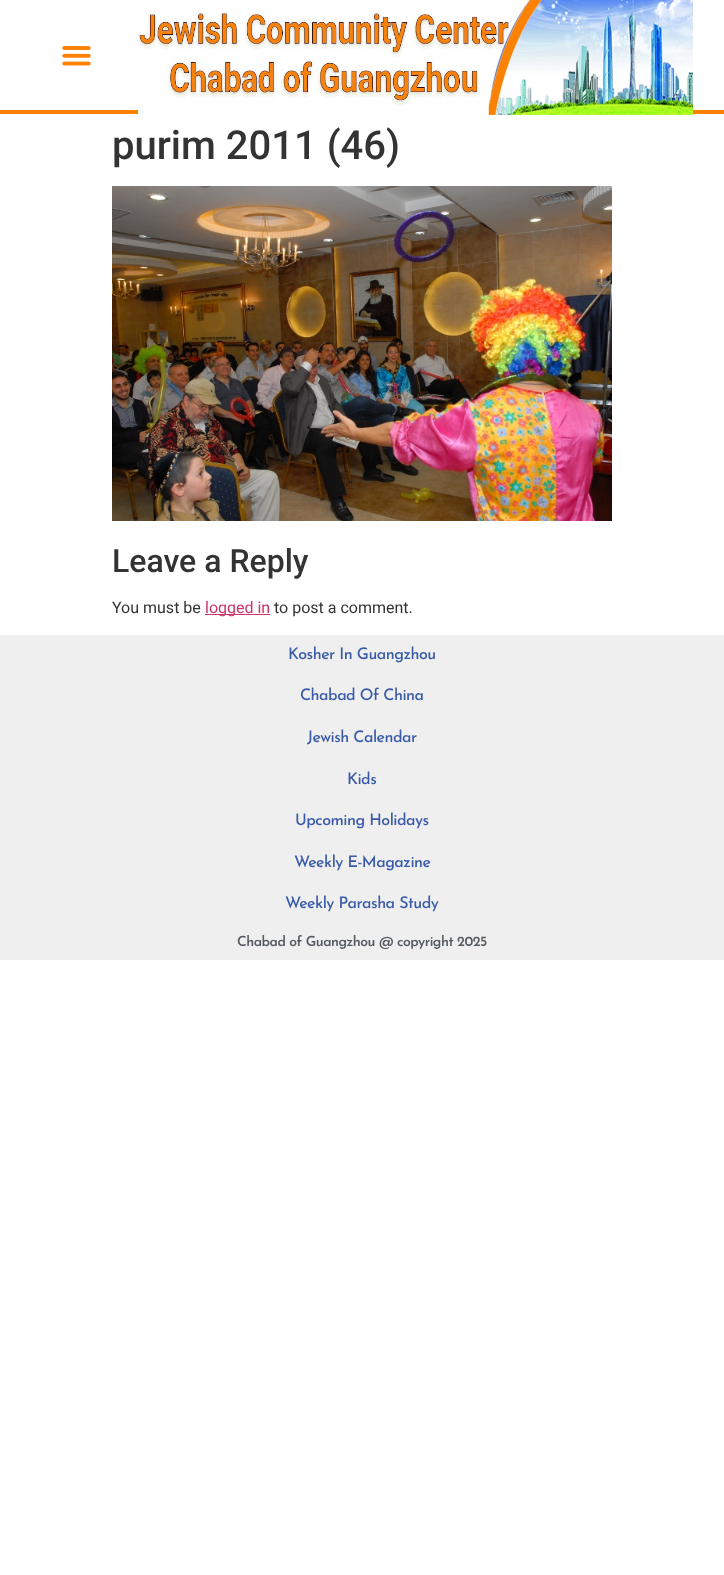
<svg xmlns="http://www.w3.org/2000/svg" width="724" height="1575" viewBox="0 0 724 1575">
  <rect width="100%" height="100%" fill="rgb(255,255,255)"/>
  <rect x="0" y="110" width="724" height="4" fill="rgb(253,130,4)"/>
  <image x="62" y="46" width="29" height="20" href="pic1.png"/>
  <image x="138" y="0" width="555" height="115" href="pic2.png"/>
  <text x="112" y="159" font-family="Roboto" font-size="40" font-weight="500" fill="rgb(51,51,51)">purim 2011 (46)</text>
  <image x="112" y="186" width="500" height="335" href="pic3.png"/>
  <text x="112" y="572" font-family="Roboto" font-size="32" font-weight="500" fill="rgb(51,51,51)">Leave a Reply</text>
  <text x="112" y="613" font-family="Roboto" font-size="16" fill="rgb(51,51,51)">You must be</text>
  <rect x="205" y="614" width="65" height="1" fill="rgb(204,51,102)"/>
  <text x="205" y="613" font-family="Roboto" font-size="16" fill="rgb(204,51,102)">logged in</text>
  <text x="274" y="613" font-family="Roboto" font-size="16" fill="rgb(51,51,51)">to post a comment.</text>
  <rect x="0" y="635" width="724" height="325" fill="rgb(239,239,239)"/>
  <g font-family="Josefin Sans" font-size="16" font-weight="500" letter-spacing="-0.5" fill="rgb(57,90,168)">
    <text x="288" y="659">Kosher In Guangzhou</text>
    <text x="300" y="700">Chabad Of China</text>
    <text x="307" y="742">Jewish Calendar</text>
    <text x="347" y="784">Kids</text>
    <text x="295" y="825">Upcoming Holidays</text>
    <text x="294" y="867">Weekly E-Magazine</text>
    <text x="285" y="908">Weekly Parasha Study</text>
  </g>
  <text x="237" y="946" font-family="Josefin Sans" font-size="14" font-weight="600" letter-spacing="-0.5" fill="rgb(84,89,95)">Chabad of Guangzhou @ copyright 2025</text>
</svg>
